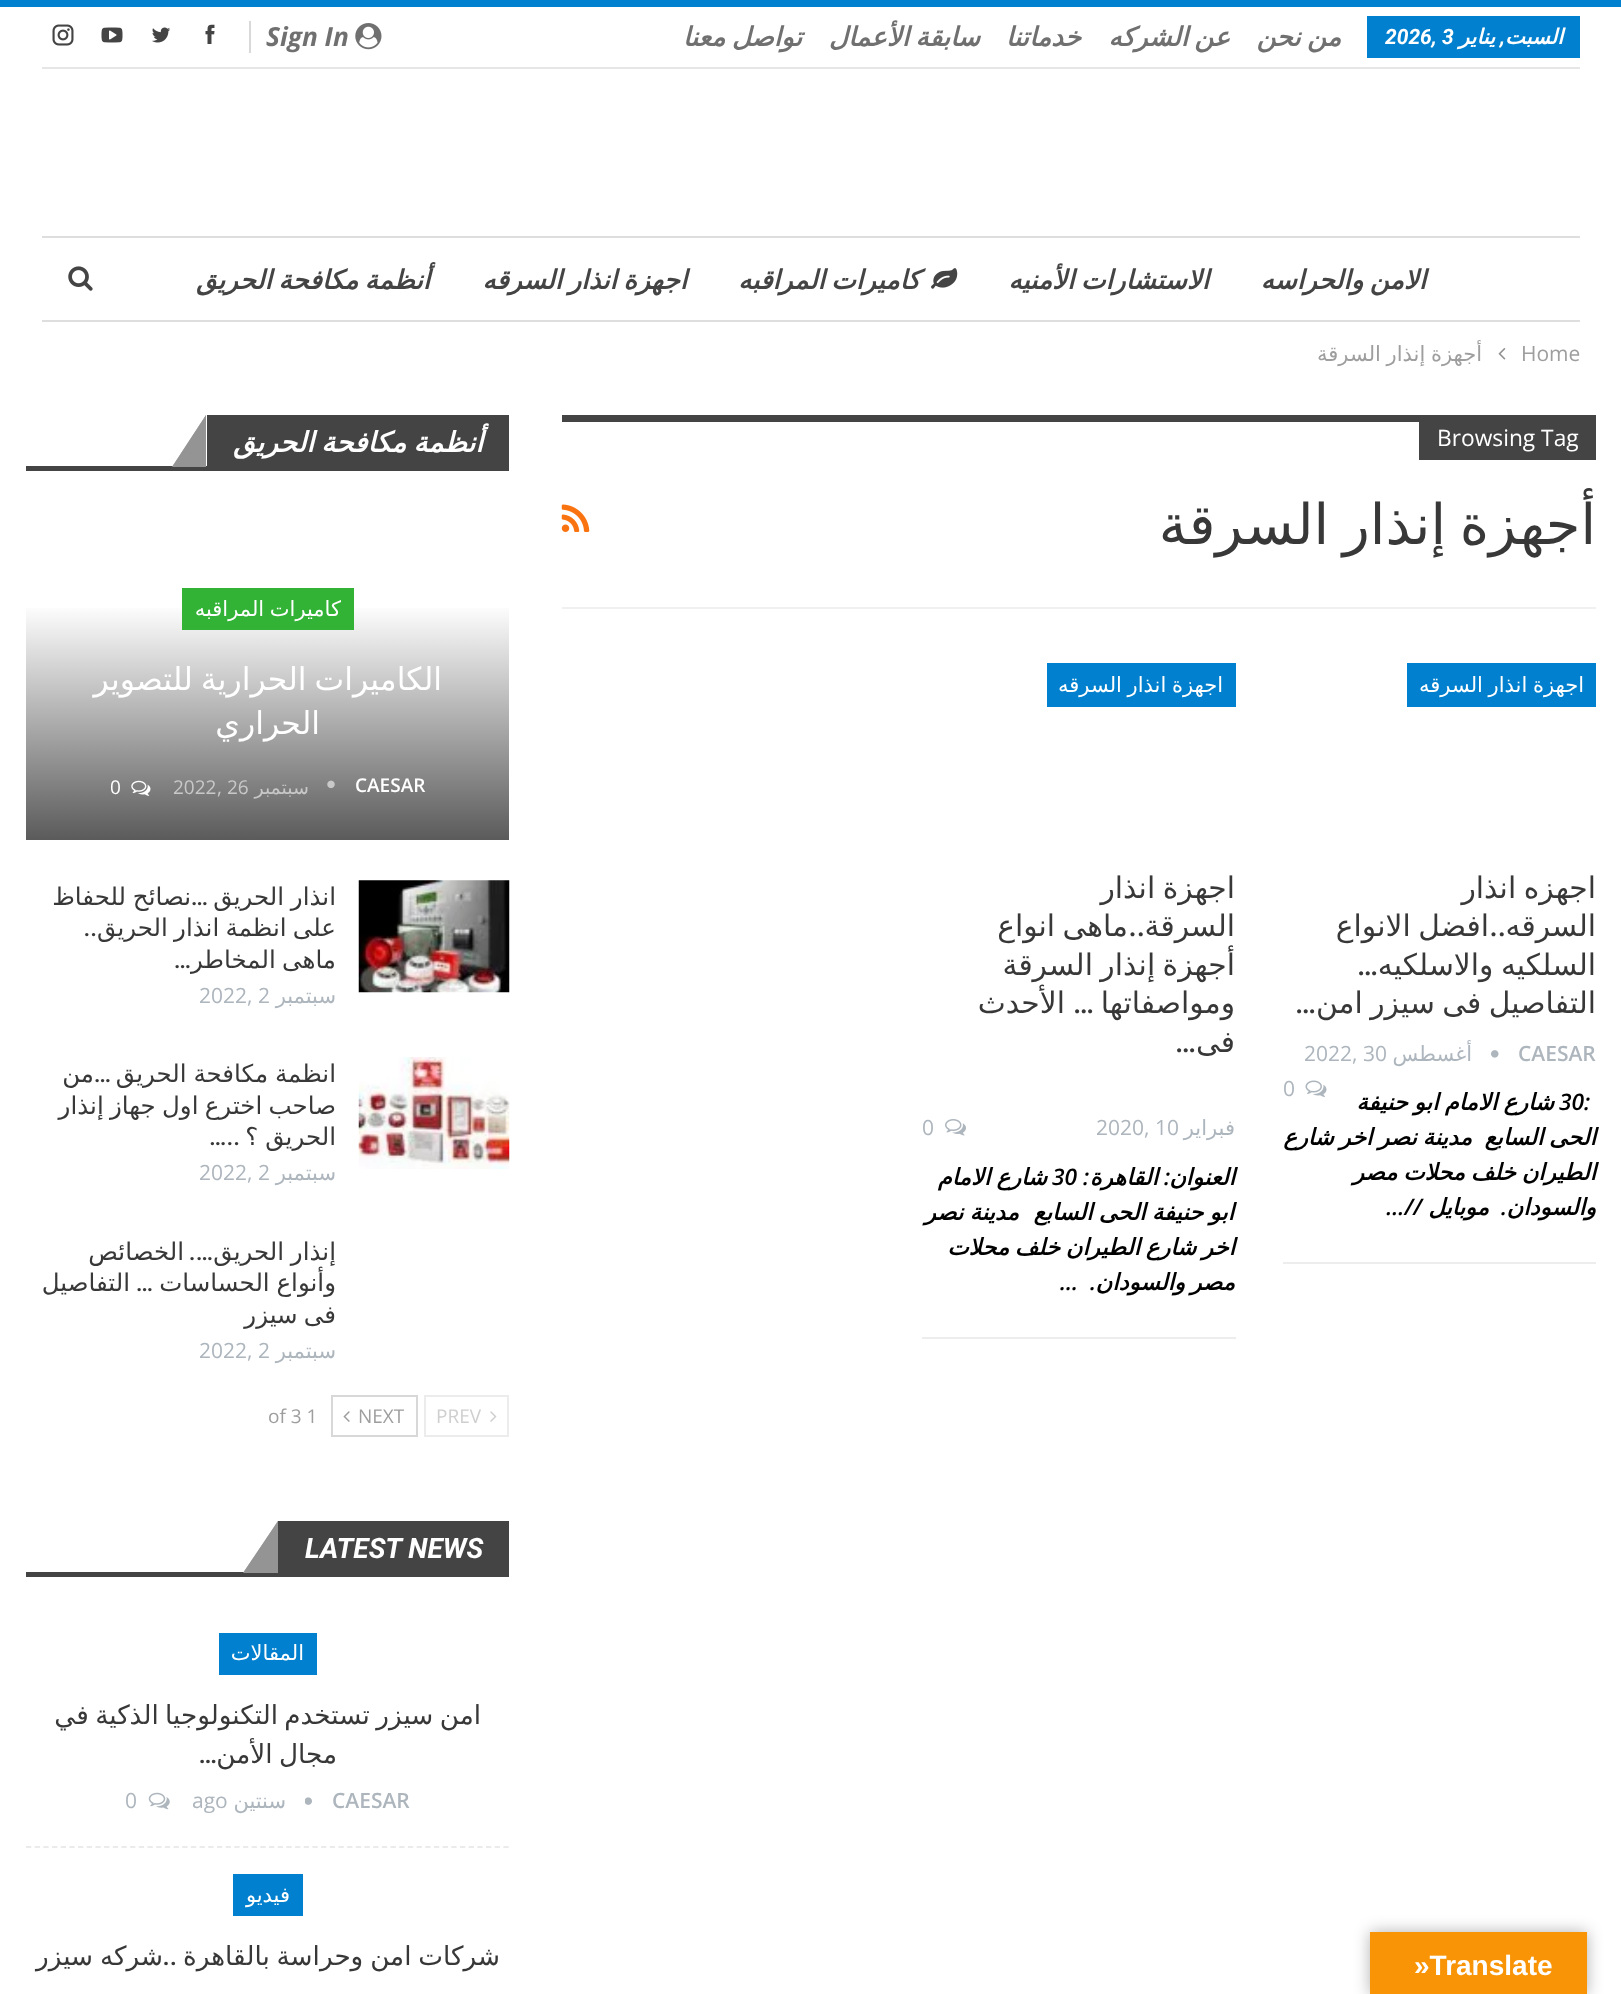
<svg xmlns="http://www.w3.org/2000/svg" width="1621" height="1994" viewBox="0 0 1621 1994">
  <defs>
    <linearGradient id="g1" gradientUnits="userSpaceOnUse" x1="268" y1="604" x2="268" y2="842"><stop offset="0" stop-color="rgb(255,255,255)"/><stop offset="1" stop-color="rgb(89,89,89)"/></linearGradient>
  </defs>
  <rect width="100%" height="100%" fill="rgb(255,255,255)"/>
  <rect x="0" y="0" width="1621" height="7" fill="rgb(0,128,206)"/>
  <rect x="42" y="67" width="1538" height="2" fill="rgb(230,230,230)"/>
  <rect x="1367" y="16" width="213" height="42" fill="rgb(0,128,206)"/>
  <text x="1563" y="44" font-family="DejaVu Sans" font-size="21" font-weight="bold" font-style="italic" direction="rtl" fill="rgb(255,255,255)">السبت</text>
  <text x="1505" y="44" font-family="Roboto" font-size="21" font-weight="bold" font-style="italic" direction="rtl" fill="rgb(255,255,255)">,</text>
  <text x="1495" y="44" font-family="DejaVu Sans" font-size="21" font-weight="bold" font-style="italic" direction="rtl" fill="rgb(255,255,255)">يناير</text>
  <text x="1385" y="44" font-family="Roboto" font-size="21" font-weight="bold" font-style="italic" fill="rgb(255,255,255)">2026, 3</text>
  <g font-family="DejaVu Sans" font-size="26.25" font-weight="bold" font-style="italic" direction="rtl" fill="rgb(112,112,112)">
    <text x="1341" y="46" word-spacing="-2">من نحن</text>
    <text x="1230" y="46" word-spacing="-2">عن الشركه</text>
    <text x="1081" y="46">خدماتنا</text>
    <text x="980" y="46" word-spacing="-2">سابقة الأعمال</text>
    <text x="802" y="46" word-spacing="-2">تواصل معنا</text>
  </g>
  <image x="355" y="23" width="27" height="27" href="pic1.png"/>
  <text x="266" y="46" font-family="Open Sans" font-size="26.25" font-weight="bold" font-style="italic" fill="rgb(112,112,112)">Sign In</text>
  <rect x="249" y="21" width="2" height="32" fill="rgb(217,217,217)"/>
  <image x="205" y="24" width="10" height="20" href="pic2.png"/>
  <image x="152" y="27" width="19" height="16" href="pic3.png"/>
  <image x="101" y="27" width="22" height="16" href="pic4.png"/>
  <image x="52" y="24" width="22" height="22" href="pic5.png"/>
  <rect x="42" y="236" width="1538" height="2" fill="rgb(222,222,222)"/>
  <rect x="42" y="320" width="1538" height="2" fill="rgb(222,222,222)"/>
  <g font-family="DejaVu Sans" font-size="26.25" font-weight="bold" font-style="italic" direction="rtl" fill="rgb(68,68,68)">
    <text x="1426" y="289" word-spacing="-2">الامن والحراسه</text>
    <text x="1209" y="289" word-spacing="-2">الاستشارات الأمنيه</text>
  </g>
  <image x="931" y="268" width="27" height="21" href="pic6.png"/>
  <g font-family="DejaVu Sans" font-size="26.25" font-weight="bold" font-style="italic" direction="rtl" fill="rgb(68,68,68)">
    <text x="920" y="289" word-spacing="-2">كاميرات المراقبه</text>
    <text x="687" y="289" word-spacing="-2">اجهزة انذار السرقه</text>
    <text x="430" y="289" word-spacing="-2">أنظمة مكافحة الحريق</text>
  </g>
  <image x="68" y="266" width="25" height="25" href="pic7.png"/>
  <text x="1521" y="361" font-family="Open Sans" font-size="21" fill="rgb(158,158,158)">Home</text>
  <image x="1498" y="348" width="8" height="12" href="pic8.png"/>
  <text x="1482" y="361" word-spacing="-1" font-family="DejaVu Sans" font-size="21" direction="rtl" fill="rgb(158,158,158)">أجهزة إنذار السرقة</text>
  <rect x="562" y="607" width="1034" height="2" fill="rgb(240,240,240)"/>
  <rect x="562" y="415" width="857" height="7" fill="rgb(68,68,68)"/>
  <rect x="1419" y="415" width="177" height="45" fill="rgb(68,68,68)"/>
  <text x="1437" y="446" font-family="Open Sans" font-size="22.75" fill="rgb(255,255,255)">Browsing Tag</text>
  <text x="1596" y="544" word-spacing="-4" font-family="DejaVu Sans" font-size="56" direction="rtl" fill="rgb(56,56,56)">أجهزة إنذار السرقة</text>
  <image x="561" y="504" width="29" height="28" href="pic9.png"/>
  <rect x="1407" y="663" width="189" height="44" fill="rgb(0,128,206)"/>
  <text x="1584" y="692" word-spacing="-1" font-family="DejaVu Sans" font-size="21" direction="rtl" fill="rgb(255,255,255)">اجهزة انذار السرقه</text>
  <g font-family="DejaVu Sans" font-size="29.75" direction="rtl" fill="rgb(56,56,56)">
    <text>
      <tspan x="1596" y="898" word-spacing="-2">اجهزه انذار</tspan>
      <tspan x="1596" y="936">السرقه</tspan>
    </text>
  </g>
  <text x="1506" y="936" font-family="Roboto" font-size="29.75" font-weight="500" direction="rtl" fill="rgb(56,56,56)">..</text>
  <g font-family="DejaVu Sans" font-size="29.75" direction="rtl" fill="rgb(56,56,56)">
    <text x="1489" y="936" word-spacing="-2">افضل الانواع</text>
    <text x="1596" y="975" word-spacing="-2">السلكيه والاسلكيه</text>
  </g>
  <text x="1378" y="975" font-family="Roboto" font-size="29.75" font-weight="500" direction="rtl" fill="rgb(56,56,56)">…</text>
  <text x="1596" y="1013" word-spacing="-2" font-family="DejaVu Sans" font-size="29.75" direction="rtl" fill="rgb(56,56,56)">التفاصيل فى سيزر امن</text>
  <text x="1316" y="1013" font-family="Roboto" font-size="29.75" font-weight="500" direction="rtl" fill="rgb(56,56,56)">…</text>
  <text x="1518" y="1061" font-family="Open Sans" font-size="21" font-weight="600" fill="rgb(173,181,189)">CAESAR</text>
  <image x="1491" y="1050" width="8" height="8" href="pic10.png"/>
  <text x="1472" y="1061" font-family="DejaVu Sans" font-size="21" direction="rtl" fill="rgb(173,181,189)">أغسطس</text>
  <text x="1304" y="1061" font-family="Open Sans" font-size="21" fill="rgb(173,181,189)">2022, 30</text>
  <image x="1305" y="1080" width="22" height="17" href="pic11.png"/>
  <text x="1283" y="1096" font-family="Open Sans" font-size="21" fill="rgb(173,181,189)">0</text>
  <rect x="1283" y="1262" width="313" height="2" fill="rgb(237,237,237)"/>
  <text x="1559" y="1110" font-family="Open Sans" font-size="22.75" font-weight="600" font-style="italic" fill="rgb(0,0,0)">30:</text>
  <g font-family="DejaVu Sans" font-size="22.75" font-weight="bold" font-style="italic" direction="rtl" fill="rgb(0,0,0)">
    <text x="1554" y="1110" word-spacing="-1">شارع الامام ابو حنيفة</text>
    <text x="1596" y="1145" word-spacing="-1.5">الحى السابع</text>
    <text x="1472" y="1145" word-spacing="-1.5">مدينة نصر اخر شارع</text>
    <text>
      <tspan x="1596" y="1180" word-spacing="-1.5">الطيران خلف محلات مصر</tspan>
      <tspan x="1596" y="1215">والسودان</tspan>
    </text>
  </g>
  <text x="1507" y="1215" font-family="Open Sans" font-size="22.75" font-weight="600" font-style="italic" direction="rtl" fill="rgb(0,0,0)">.</text>
  <text x="1489" y="1215" font-family="DejaVu Sans" font-size="22.75" font-weight="bold" font-style="italic" direction="rtl" fill="rgb(0,0,0)">موبايل</text>
  <text x="1422" y="1215" font-family="Open Sans" font-size="22.75" font-weight="600" font-style="italic" direction="rtl" fill="rgb(0,0,0)">//…</text>
  <rect x="1047" y="663" width="189" height="44" fill="rgb(0,128,206)"/>
  <text x="1223" y="692" word-spacing="-1" font-family="DejaVu Sans" font-size="21" direction="rtl" fill="rgb(255,255,255)">اجهزة انذار السرقه</text>
  <g font-family="DejaVu Sans" font-size="29.75" direction="rtl" fill="rgb(56,56,56)">
    <text>
      <tspan x="1235" y="898" word-spacing="-2">اجهزة انذار</tspan>
      <tspan x="1235" y="936">السرقة</tspan>
    </text>
  </g>
  <text x="1145" y="936" font-family="Roboto" font-size="29.75" font-weight="500" direction="rtl" fill="rgb(56,56,56)">..</text>
  <g font-family="DejaVu Sans" font-size="29.75" direction="rtl" fill="rgb(56,56,56)">
    <text x="1128" y="936" word-spacing="-2">ماهى انواع</text>
    <text>
      <tspan x="1235" y="975" word-spacing="-2">أجهزة إنذار السرقة</tspan>
      <tspan x="1235" y="1013">ومواصفاتها</tspan>
    </text>
  </g>
  <text x="1094" y="1013" font-family="Roboto" font-size="29.75" font-weight="500" direction="rtl" fill="rgb(56,56,56)">…</text>
  <g font-family="DejaVu Sans" font-size="29.75" direction="rtl" fill="rgb(56,56,56)">
    <text x="1065" y="1013">الأحدث</text>
    <text x="1235" y="1052">فى</text>
  </g>
  <text x="1196" y="1052" font-family="Roboto" font-size="29.75" font-weight="500" direction="rtl" fill="rgb(56,56,56)">…</text>
  <text x="1235" y="1135" font-family="DejaVu Sans" font-size="21" direction="rtl" fill="rgb(173,181,189)">فبراير</text>
  <text x="1096" y="1135" font-family="Open Sans" font-size="21" fill="rgb(173,181,189)">2020, 10</text>
  <image x="945" y="1119" width="21" height="17" href="pic12.png"/>
  <text x="922" y="1135" font-family="Open Sans" font-size="21" fill="rgb(173,181,189)">0</text>
  <rect x="922" y="1337" width="314" height="2" fill="rgb(237,237,237)"/>
  <text x="1235" y="1185" font-family="DejaVu Sans" font-size="22.75" font-weight="bold" font-style="italic" direction="rtl" fill="rgb(0,0,0)">العنوان</text>
  <text x="1170" y="1185" font-family="Open Sans" font-size="22.75" font-weight="600" font-style="italic" direction="rtl" fill="rgb(0,0,0)">:</text>
  <text x="1158" y="1185" font-family="DejaVu Sans" font-size="22.75" font-weight="bold" font-style="italic" direction="rtl" fill="rgb(0,0,0)">القاهرة</text>
  <text x="1089" y="1185" font-family="Open Sans" font-size="22.75" font-weight="600" font-style="italic" direction="rtl" fill="rgb(0,0,0)">:</text>
  <text x="1052" y="1185" font-family="Open Sans" font-size="22.75" font-weight="600" font-style="italic" fill="rgb(0,0,0)">30</text>
  <g font-family="DejaVu Sans" font-size="22.75" font-weight="bold" font-style="italic" direction="rtl" fill="rgb(0,0,0)">
    <text x="1047" y="1185" word-spacing="-1">شارع الامام</text>
    <text x="1234" y="1220" word-spacing="-1">ابو حنيفة الحى السابع</text>
    <text x="1019" y="1220" word-spacing="-1">مدينة نصر</text>
    <text>
      <tspan x="1235" y="1255" word-spacing="-1.5">اخر شارع الطيران خلف محلات</tspan>
      <tspan x="1235" y="1290">مصر</tspan>
    </text>
    <text x="1185" y="1290">والسودان</text>
  </g>
  <text x="1096" y="1290" font-family="Open Sans" font-size="22.75" font-weight="600" font-style="italic" direction="rtl" fill="rgb(0,0,0)" xml:space="preserve">.  …</text>
  <rect x="207" y="415" width="302" height="56" fill="rgb(68,68,68)"/>
  <rect x="26" y="466" width="181" height="5" fill="rgb(68,68,68)"/>
  <path d="M206 467H172L206 415Z" fill="rgb(68,68,68)"/>
  <text x="483" y="452" word-spacing="-2" font-family="DejaVu Sans" font-size="28" font-weight="bold" font-style="italic" direction="rtl" fill="rgb(255,255,255)">أنظمة مكافحة الحريق</text>
  <path d="M206 467H172L206 415Z" fill="rgba(255,255,255,0.43)"/>
  <rect x="26" y="608" width="483" height="232" fill="url(#g1)"/>
  <rect x="182" y="588" width="172" height="42" fill="rgb(50,179,54)"/>
  <text x="341" y="616" word-spacing="-1" font-family="DejaVu Sans" font-size="21" direction="rtl" fill="rgb(255,255,255)">كاميرات المراقبه</text>
  <g font-family="DejaVu Sans" font-size="31.5" direction="rtl" fill="rgb(255,255,255)">
    <text x="442" y="690" word-spacing="-2">الكاميرات الحرارية للتصوير</text>
    <text x="320" y="734">الحراري</text>
  </g>
  <text x="355" y="792" font-family="Open Sans" font-size="19" font-weight="600" fill="rgb(255,255,255)">CAESAR</text>
  <image x="327" y="780" width="8" height="9" href="pic13.png"/>
  <text x="309" y="794" font-family="DejaVu Sans" font-size="19" direction="rtl" fill="rgb(200,200,200)">سبتمبر</text>
  <g font-family="Open Sans" font-size="19" fill="rgb(200,200,200)">
    <text x="227" y="794">26</text>
    <text x="217" y="794">,</text>
    <text x="173" y="794">2022</text>
  </g>
  <image x="131" y="780" width="20" height="16" href="pic14.png"/>
  <text x="110" y="794" font-family="Open Sans" font-size="19" fill="rgb(255,255,255)">0</text>
  <image x="358" y="880" width="152" height="113" href="pic15.png"/>
  <text x="336" y="905" word-spacing="-1" font-family="DejaVu Sans" font-size="24.5" direction="rtl" fill="rgb(56,56,56)">انذار الحريق</text>
  <text x="208" y="905" font-family="Roboto" font-size="24.5" font-weight="500" direction="rtl" fill="rgb(56,56,56)">…</text>
  <g font-family="DejaVu Sans" font-size="24.5" direction="rtl" fill="rgb(56,56,56)">
    <text x="191" y="905" word-spacing="-1">نصائح للحفاظ</text>
    <text x="336" y="936" word-spacing="-1.5">على انظمة انذار الحريق</text>
  </g>
  <text x="97" y="936" font-family="Roboto" font-size="24.5" font-weight="500" direction="rtl" fill="rgb(56,56,56)">..</text>
  <text x="336" y="968" word-spacing="-1.5" font-family="DejaVu Sans" font-size="24.5" direction="rtl" fill="rgb(56,56,56)">ماهى المخاطر</text>
  <text x="191" y="968" font-family="Roboto" font-size="24.5" font-weight="500" direction="rtl" fill="rgb(56,56,56)">…</text>
  <text x="336" y="1003" font-family="DejaVu Sans" font-size="21" direction="rtl" fill="rgb(173,181,189)">سبتمبر</text>
  <text x="199" y="1003" font-family="Open Sans" font-size="21" fill="rgb(173,181,189)">2022, 2</text>
  <image x="358" y="1057" width="152" height="112" href="pic16.png"/>
  <text x="336" y="1082" word-spacing="-1" font-family="DejaVu Sans" font-size="24.5" direction="rtl" fill="rgb(56,56,56)">انظمة مكافحة الحريق</text>
  <text x="111" y="1082" font-family="Roboto" font-size="24.5" font-weight="500" direction="rtl" fill="rgb(56,56,56)">…</text>
  <g font-family="DejaVu Sans" font-size="24.5" direction="rtl" fill="rgb(56,56,56)">
    <text x="94" y="1082">من</text>
    <text>
      <tspan x="336" y="1114" word-spacing="-1.5">صاحب اخترع اول جهاز إنذار</tspan>
      <tspan x="336" y="1145" word-spacing="-1">الحريق ؟</tspan>
    </text>
  </g>
  <text x="240" y="1145" font-family="Roboto" font-size="24.5" font-weight="500" direction="rtl" fill="rgb(56,56,56)">..…</text>
  <text x="336" y="1180" font-family="DejaVu Sans" font-size="21" direction="rtl" fill="rgb(173,181,189)">سبتمبر</text>
  <text x="199" y="1180" font-family="Open Sans" font-size="21" fill="rgb(173,181,189)">2022, 2</text>
  <text x="336" y="1260" word-spacing="-1" font-family="DejaVu Sans" font-size="24.5" direction="rtl" fill="rgb(56,56,56)">إنذار الحريق</text>
  <text x="213" y="1260" font-family="Roboto" font-size="24.5" font-weight="500" direction="rtl" fill="rgb(56,56,56)">….</text>
  <g font-family="DejaVu Sans" font-size="24.5" direction="rtl" fill="rgb(56,56,56)">
    <text x="184" y="1260">الخصائص</text>
    <text x="336" y="1291" word-spacing="-1">وأنواع الحساسات</text>
  </g>
  <text x="153" y="1291" font-family="Roboto" font-size="24.5" font-weight="500" direction="rtl" fill="rgb(56,56,56)">…</text>
  <g font-family="DejaVu Sans" font-size="24.5" direction="rtl" fill="rgb(56,56,56)">
    <text x="130" y="1291">التفاصيل</text>
    <text x="336" y="1323" word-spacing="-1.5">فى سيزر</text>
  </g>
  <text x="336" y="1358" font-family="DejaVu Sans" font-size="21" direction="rtl" fill="rgb(173,181,189)">سبتمبر</text>
  <text x="199" y="1358" font-family="Open Sans" font-size="21" fill="rgb(173,181,189)">2022, 2</text>
  <rect x="425" y="1396" width="83" height="40" fill="none" stroke="rgb(236,236,236)" stroke-width="2"/>
  <image x="490" y="1411" width="7" height="11" href="pic17.png"/>
  <text x="436" y="1423" font-family="Open Sans" font-size="19" fill="rgb(207,207,207)">PREV</text>
  <rect x="332" y="1396" width="85" height="40" fill="none" stroke="rgb(216,216,216)" stroke-width="2"/>
  <text x="358" y="1423" font-family="Open Sans" font-size="19" fill="rgb(158,158,158)">NEXT</text>
  <image x="343" y="1411" width="7" height="11" href="pic18.png"/>
  <text x="268" y="1423" font-family="Open Sans" font-size="19" fill="rgb(158,158,158)">of 3 1</text>
  <rect x="278" y="1521" width="231" height="56" fill="rgb(68,68,68)"/>
  <rect x="26" y="1572" width="252" height="5" fill="rgb(68,68,68)"/>
  <path d="M278 1573H243L278 1521Z" fill="rgb(68,68,68)"/>
  <text x="305" y="1558" font-family="Roboto" font-size="28" font-weight="bold" font-style="italic" fill="rgb(255,255,255)">LATEST NEWS</text>
  <path d="M278 1573H243L278 1521Z" fill="rgba(255,255,255,0.43)"/>
  <path d="M26 1847H509" fill="none" stroke="rgb(235,235,235)" stroke-width="1.8" stroke-dasharray="5.25 3.43"/>
  <rect x="219" y="1633" width="98" height="42" fill="rgb(0,128,206)"/>
  <text x="304" y="1660" font-family="DejaVu Sans" font-size="21" direction="rtl" fill="rgb(255,255,255)">المقالات</text>
  <g font-family="DejaVu Sans" font-size="26.25" direction="rtl" fill="rgb(56,56,56)">
    <text x="481" y="1724" word-spacing="-2">امن سيزر تستخدم التكنولوجيا الذكية في</text>
    <text x="337" y="1763" word-spacing="-2">مجال الأمن</text>
  </g>
  <text x="217" y="1763" font-family="Roboto" font-size="26.25" font-weight="500" direction="rtl" fill="rgb(56,56,56)">…</text>
  <text x="332" y="1808" font-family="Open Sans" font-size="21" font-weight="600" fill="rgb(173,181,189)">CAESAR</text>
  <image x="305" y="1797" width="7" height="8" href="pic19.png"/>
  <text x="286" y="1808" font-family="DejaVu Sans" font-size="21" direction="rtl" fill="rgb(173,181,189)">سنتين</text>
  <text x="192" y="1808" font-family="Open Sans" font-size="21" fill="rgb(173,181,189)">ago</text>
  <image x="148" y="1792" width="22" height="18" href="pic20.png"/>
  <text x="125" y="1808" font-family="Open Sans" font-size="21" fill="rgb(173,181,189)">0</text>
  <rect x="233" y="1874" width="70" height="42" fill="rgb(0,128,206)"/>
  <text x="290" y="1902" font-family="DejaVu Sans" font-size="21" direction="rtl" fill="rgb(255,255,255)">فيديو</text>
  <text x="500" y="1965" word-spacing="-1.5" font-family="DejaVu Sans" font-size="26.25" direction="rtl" fill="rgb(56,56,56)">شركات امن وحراسة بالقاھرة</text>
  <text x="177" y="1965" font-family="Roboto" font-size="26.25" font-weight="500" direction="rtl" fill="rgb(56,56,56)">..</text>
  <text x="163" y="1965" word-spacing="-1.5" font-family="DejaVu Sans" font-size="26.25" direction="rtl" fill="rgb(56,56,56)">شركه سيزر</text>
  <rect x="1370" y="1932" width="217" height="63" fill="rgba(0,0,0,0.3)" filter="blur(8px)"/>
  <rect x="1370" y="1932" width="217" height="62" fill="rgb(248,148,6)"/>
  <text x="1414" y="1975" font-family="Liberation Sans" font-size="28" font-weight="bold" fill="rgb(255,255,255)">»Translate</text>
</svg>
